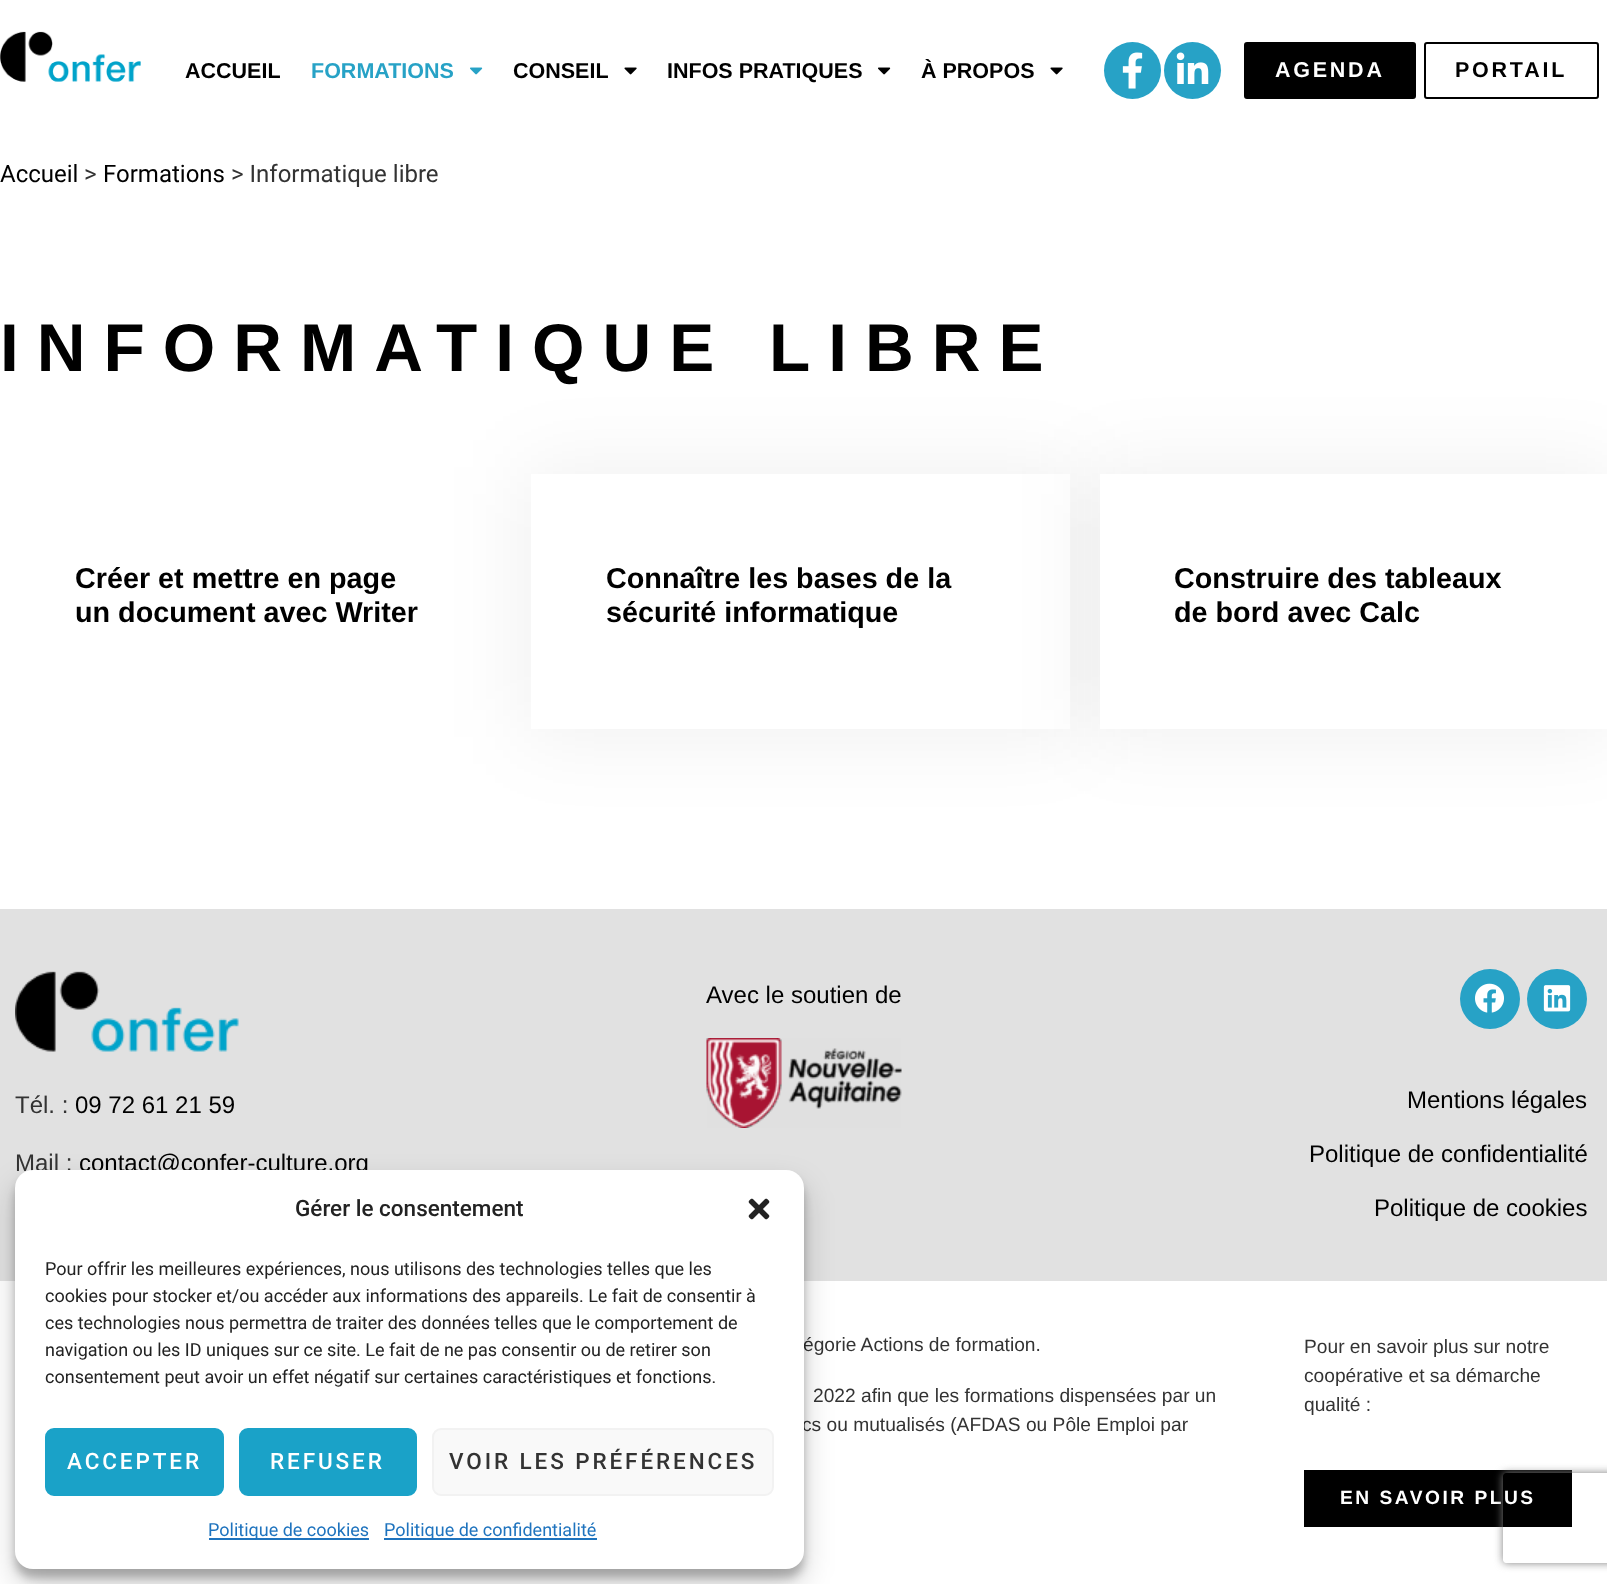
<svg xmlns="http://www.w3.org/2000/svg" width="1607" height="1584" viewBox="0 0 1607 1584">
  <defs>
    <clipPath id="clip1"><path d="M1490 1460H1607V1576H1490ZM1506 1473H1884C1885.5 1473 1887 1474.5 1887 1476V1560C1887 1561.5 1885.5 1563 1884 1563H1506C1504.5 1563 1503 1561.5 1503 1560V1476C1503 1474.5 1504.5 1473 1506 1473Z" clip-rule="evenodd"/></clipPath>
  </defs>
  <rect width="100%" height="100%" fill="rgb(255,255,255)"/>
  <image x="0" y="31" width="141" height="51" href="pic1.png"/>
  <text x="185" y="78" font-family="Liberation Sans" font-size="21.5" font-weight="bold" fill="rgb(0,0,0)">ACCUEIL</text>
  <text x="311" y="78" font-family="Liberation Sans" font-size="21.5" font-weight="bold" fill="rgb(39,162,198)">FORMATIONS</text>
  <image x="470" y="67" width="13" height="8" href="pic2.png"/>
  <text x="513" y="78" font-family="Liberation Sans" font-size="21.5" font-weight="bold" fill="rgb(0,0,0)">CONSEIL</text>
  <image x="624" y="67" width="13" height="8" href="pic3.png"/>
  <text x="667" y="78" font-family="Liberation Sans" font-size="21.5" font-weight="bold" fill="rgb(0,0,0)">INFOS PRATIQUES</text>
  <image x="878" y="67" width="13" height="8" href="pic4.png"/>
  <text x="921" y="78" font-family="Liberation Sans" font-size="21.5" font-weight="bold" fill="rgb(0,0,0)">À PROPOS</text>
  <image x="1050" y="67" width="13" height="8" href="pic3.png"/>
  <circle cx="1132.5" cy="70.5" r="28.5" fill="rgb(39,162,198)"/>
  <image x="1122" y="52" width="21" height="37" href="pic5.png"/>
  <circle cx="1192.5" cy="70.5" r="28.5" fill="rgb(39,162,198)"/>
  <image x="1176" y="52" width="33" height="32" href="pic6.png"/>
  <rect x="1245" y="43" width="170" height="55" rx="2" fill="rgb(0,0,0)" stroke="rgb(0,0,0)" stroke-width="2"/>
  <text x="1275" y="77" font-family="Liberation Sans" font-size="21.5" font-weight="bold" letter-spacing="2.75" fill="rgb(255,255,255)">AGENDA</text>
  <rect x="1425" y="43" width="173" height="55" rx="2" fill="none" stroke="rgb(0,0,0)" stroke-width="2"/>
  <text x="1455" y="77" font-family="Liberation Sans" font-size="21.5" font-weight="bold" letter-spacing="2.75" fill="rgb(0,0,0)">PORTAIL</text>
  <text x="0" y="182" font-family="Roboto" font-size="24" fill="rgb(0,0,0)">Accueil</text>
  <text x="84" y="182" font-family="Roboto" font-size="24" fill="rgb(51,51,51)">&gt;</text>
  <text x="103" y="182" font-family="Roboto" font-size="24" fill="rgb(0,0,0)">Formations</text>
  <text x="231" y="182" font-family="Roboto" font-size="24" fill="rgb(51,51,51)">&gt; Informatique libre</text>
  <text x="0" y="371" font-family="Liberation Sans" font-size="67.5" font-weight="bold" letter-spacing="18" fill="rgb(0,0,0)">INFORMATIQUE LIBRE</text>
  <g font-family="Liberation Sans" font-size="28.75" font-weight="bold" fill="rgb(0,0,0)">
    <text>
      <tspan x="75" y="588">Créer et mettre en page</tspan>
      <tspan x="75" y="622">un document avec Writer</tspan>
    </text>
  </g>
  <rect x="524" y="467" width="553" height="270" fill="rgba(0,0,0,0.06)" filter="blur(41px)"/>
  <rect x="531" y="474" width="539" height="255" fill="rgb(255,255,255)"/>
  <g font-family="Liberation Sans" font-size="28.75" font-weight="bold" fill="rgb(0,0,0)">
    <text>
      <tspan x="606" y="588">Connaître les bases de la</tspan>
      <tspan x="606" y="622">sécurité informatique</tspan>
    </text>
  </g>
  <rect x="1092" y="467" width="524" height="270" fill="rgba(0,0,0,0.06)" filter="blur(41px)"/>
  <rect x="1100" y="474" width="507" height="255" fill="rgb(255,255,255)"/>
  <g font-family="Liberation Sans" font-size="28.75" font-weight="bold" fill="rgb(0,0,0)">
    <text>
      <tspan x="1174" y="588">Construire des tableaux</tspan>
      <tspan x="1174" y="622">de bord avec Calc</tspan>
    </text>
  </g>
  <rect x="0" y="909" width="1607" height="372" fill="rgb(225,225,225)"/>
  <text x="706" y="1003" font-family="Liberation Sans" font-size="24" fill="rgb(0,0,0)">Avec le soutien de</text>
  <image x="706" y="1038" width="196" height="90" href="pic7.png"/>
  <image x="15" y="971" width="224" height="81" href="pic8.png"/>
  <text x="15" y="1113" font-family="Liberation Sans" font-size="24" fill="rgb(51,51,51)">Tél. :</text>
  <text x="75" y="1113" font-family="Liberation Sans" font-size="24" fill="rgb(0,0,0)">09 72 61 21 59</text>
  <text x="15" y="1171" font-family="Liberation Sans" font-size="24" fill="rgb(51,51,51)">Mail :</text>
  <text x="79" y="1171" font-family="Liberation Sans" font-size="24" fill="rgb(0,0,0)">contact@confer-culture.org</text>
  <circle cx="1490" cy="999" r="30" fill="rgb(39,162,198)"/>
  <image x="1475" y="983" width="29" height="30" href="pic9.png"/>
  <circle cx="1557" cy="999" r="30" fill="rgb(39,162,198)"/>
  <image x="1543" y="985" width="28" height="27" href="pic10.png"/>
  <g font-family="Liberation Sans" font-size="24" fill="rgb(0,0,0)">
    <text x="1407" y="1108">Mentions légales</text>
    <text x="1309" y="1162">Politique de confidentialité</text>
    <text x="1374" y="1216">Politique de cookies</text>
  </g>
  <g font-family="Liberation Sans" font-size="19.2" fill="rgb(51,51,51)">
    <text x="803" y="1351">égorie Actions de formation.</text>
    <text x="813" y="1402">2022 afin que les formations dispensées par un</text>
    <text x="802" y="1431">cs ou mutualisés (AFDAS ou Pôle Emploi par</text>
    <text>
      <tspan x="1304" y="1353">Pour en savoir plus sur notre</tspan>
      <tspan x="1304" y="1382">coopérative et sa démarche</tspan>
      <tspan x="1304" y="1411">qualité :</tspan>
    </text>
  </g>
  <rect x="1304" y="1470" width="268" height="57" fill="rgb(0,0,0)"/>
  <text x="1340" y="1504" font-family="Liberation Sans" font-size="19.2" font-weight="bold" letter-spacing="2.5" fill="rgb(255,255,255)">EN SAVOIR PLUS</text>
  <rect x="15" y="1179" width="789" height="399" rx="18" fill="rgba(0,0,0,0.23)" filter="blur(4.5px)"/>
  <rect x="15" y="1185" width="789" height="399" rx="18" fill="rgba(0,0,0,0.19)" filter="blur(15px)"/>
  <rect x="15" y="1170" width="789" height="399" rx="18" fill="rgb(255,255,255)"/>
  <text x="295" y="1216" font-family="Roboto" font-size="22.5" font-weight="500" fill="rgb(34,34,34)">Gérer le consentement</text>
  <image x="748" y="1198" width="22" height="22" href="pic11.png"/>
  <g font-family="Roboto" font-size="18" fill="rgb(34,34,34)">
    <text>
      <tspan x="45" y="1275">Pour offrir les meilleures expériences, nous utilisons des technologies telles que les</tspan>
      <tspan x="45" y="1302">cookies pour stocker et/ou accéder aux informations des appareils. Le fait de consentir à</tspan>
      <tspan x="45" y="1329">ces technologies nous permettra de traiter des données telles que le comportement de</tspan>
      <tspan x="45" y="1356">navigation ou les ID uniques sur ce site. Le fait de ne pas consentir ou de retirer son</tspan>
      <tspan x="45" y="1383">consentement peut avoir un effet négatif sur certaines caractéristiques et fonctions.</tspan>
    </text>
  </g>
  <rect x="46" y="1429" width="177" height="66" rx="8" fill="rgb(26,162,200)" stroke="rgb(26,162,200)" stroke-width="2"/>
  <text x="67" y="1469" font-family="Roboto" font-size="22.5" font-weight="500" letter-spacing="2.9" fill="rgb(255,255,255)">ACCEPTER</text>
  <rect x="240" y="1429" width="176" height="66" rx="8" fill="rgb(26,162,200)" stroke="rgb(26,162,200)" stroke-width="2"/>
  <text x="270" y="1469" font-family="Roboto" font-size="22.5" font-weight="500" letter-spacing="2.9" fill="rgb(255,255,255)">REFUSER</text>
  <rect x="433" y="1429" width="340" height="66" rx="8" fill="rgb(249,249,249)" stroke="rgb(242,242,242)" stroke-width="2"/>
  <text x="449" y="1469" font-family="Roboto" font-size="22.5" font-weight="500" letter-spacing="2.9" fill="rgb(51,51,51)">VOIR LES PRÉFÉRENCES</text>
  <rect x="209" y="1538" width="160" height="2" fill="rgb(30,115,190)"/>
  <text x="208" y="1536" font-family="Roboto" font-size="18" fill="rgb(30,115,190)">Politique de cookies</text>
  <rect x="384" y="1538" width="213" height="2" fill="rgb(30,115,190)"/>
  <text x="384" y="1536" font-family="Roboto" font-size="18" fill="rgb(30,115,190)">Politique de confidentialité</text>
  <g clip-path="url(#clip1)">
    <rect x="1503" y="1473" width="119" height="90" rx="3" fill="rgb(128,128,128)" filter="blur(4px)"/>
  </g>
</svg>
